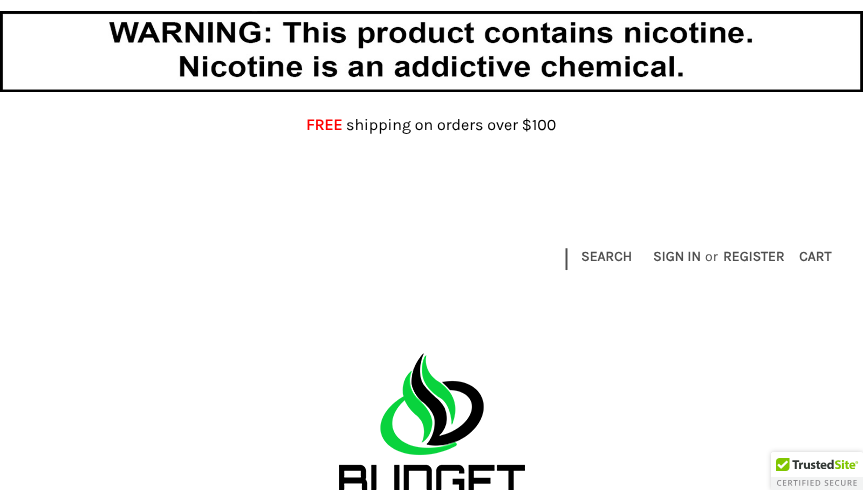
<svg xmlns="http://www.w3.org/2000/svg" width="863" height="490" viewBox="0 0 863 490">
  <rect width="100%" height="100%" fill="rgb(255,255,255)"/>
  <image x="0" y="11" width="863" height="81" href="pic1.png"/>
  <text x="306" y="130" font-family="Karla" font-size="16" font-weight="bold" fill="rgb(255,0,0)">FREE</text>
  <text x="346" y="130" font-family="Karla" font-size="16" fill="rgb(0,0,0)">shipping on orders over $100</text>
  <text x="563" y="267" font-family="Karla" font-size="25" fill="rgb(79,79,79)">|</text>
  <g font-family="Karla" font-size="14" font-weight="bold" fill="rgb(79,79,79)">
    <text x="581" y="261">SEARCH</text>
    <text x="653" y="261">SIGN IN</text>
  </g>
  <text x="705" y="261" font-family="Karla" font-size="14" fill="rgb(79,79,79)">or</text>
  <g font-family="Karla" font-size="14" font-weight="bold" fill="rgb(79,79,79)">
    <text x="723" y="261">REGISTER</text>
    <text x="799" y="261">CART</text>
  </g>
  <image x="339" y="353" width="186" height="137" href="pic2.png"/>
  <rect x="771" y="452" width="92" height="38" rx="2" fill="rgba(0,0,0,0.2)" filter="blur(2.5px)"/>
  <path d="M773 452H863V490H771V454C771 453 772 452 773 452Z" fill="rgb(255,255,255)"/>
  <image x="771" y="452" width="92" height="38" href="pic3.png"/>
</svg>
